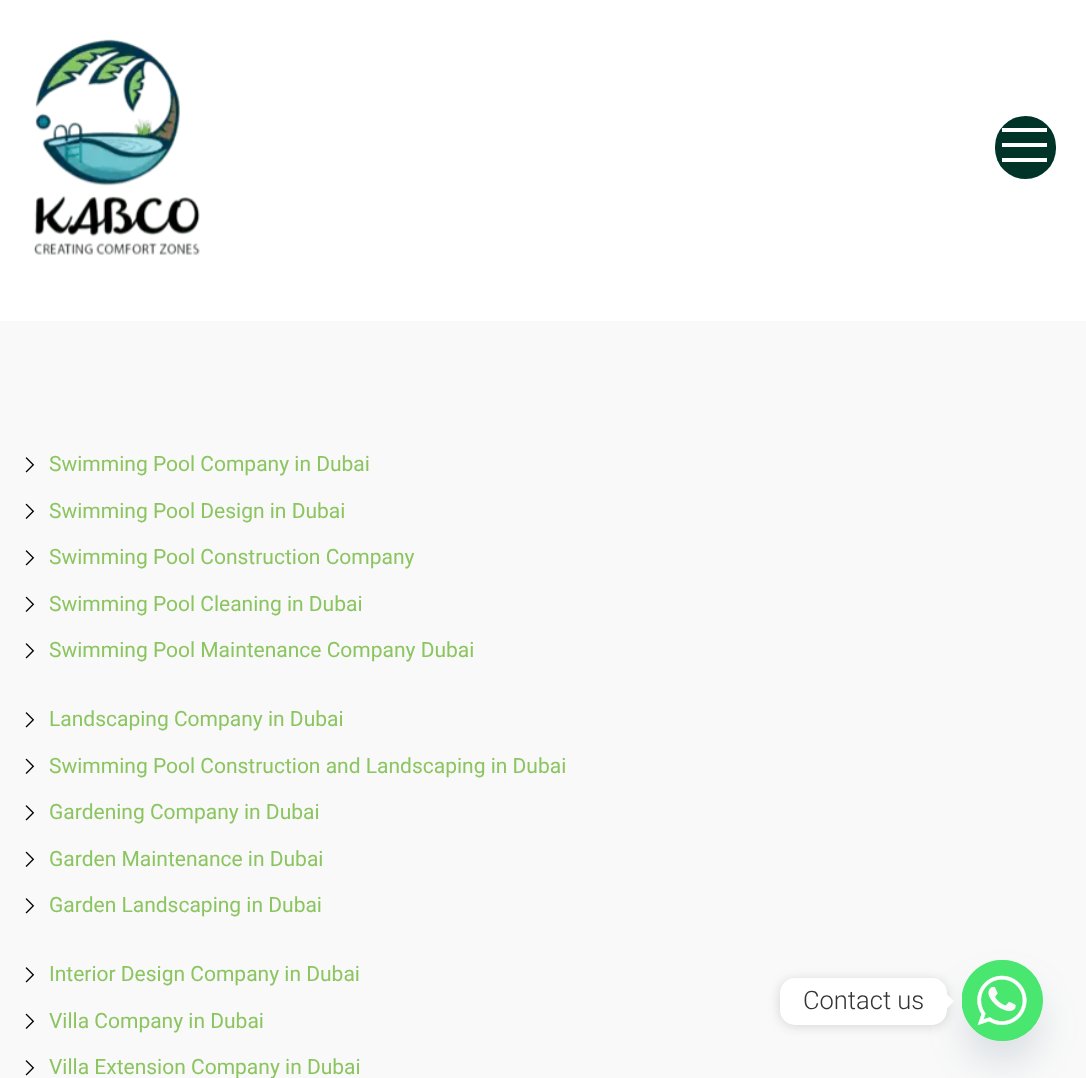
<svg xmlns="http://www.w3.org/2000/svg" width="1086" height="1078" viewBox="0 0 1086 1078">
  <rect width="100%" height="100%" fill="rgb(255,255,255)"/>
  <image x="33" y="39" width="167" height="216" href="pic1.png"/>
  <rect x="995" y="116" width="61" height="63" rx="30.5" fill="rgb(0,52,40)"/>
  <path d="M1002 128V132H1047V128ZM1002 143V147H1047V143ZM1002 158V162H1047V158Z" fill="rgb(255,255,255)"/>
  <rect x="0" y="321" width="1086" height="757" fill="rgb(249,249,249)"/>
  <image x="25" y="457" width="10" height="16" href="pic2.png"/>
  <text x="49" y="471" font-family="Roboto" font-size="21" fill="rgb(139,197,95)">Swimming Pool Company in Dubai</text>
  <image x="25" y="503" width="10" height="16" href="pic3.png"/>
  <text x="49" y="518" font-family="Roboto" font-size="21" fill="rgb(139,197,95)">Swimming Pool Design in Dubai</text>
  <image x="25" y="550" width="10" height="16" href="pic2.png"/>
  <text x="49" y="564" font-family="Roboto" font-size="21" fill="rgb(139,197,95)">Swimming Pool Construction Company</text>
  <image x="25" y="596" width="10" height="16" href="pic3.png"/>
  <text x="49" y="611" font-family="Roboto" font-size="21" fill="rgb(139,197,95)">Swimming Pool Cleaning in Dubai</text>
  <image x="25" y="643" width="10" height="16" href="pic2.png"/>
  <text x="49" y="657" font-family="Roboto" font-size="21" fill="rgb(139,197,95)">Swimming Pool Maintenance Company Dubai</text>
  <image x="25" y="712" width="10" height="16" href="pic2.png"/>
  <text x="49" y="726" font-family="Roboto" font-size="21" fill="rgb(139,197,95)">Landscaping Company in Dubai</text>
  <image x="25" y="758" width="10" height="16" href="pic3.png"/>
  <text x="49" y="773" font-family="Roboto" font-size="21" fill="rgb(139,197,95)">Swimming Pool Construction and Landscaping in Dubai</text>
  <image x="25" y="805" width="10" height="16" href="pic2.png"/>
  <text x="49" y="819" font-family="Roboto" font-size="21" fill="rgb(139,197,95)">Gardening Company in Dubai</text>
  <image x="25" y="851" width="10" height="16" href="pic3.png"/>
  <text x="49" y="866" font-family="Roboto" font-size="21" fill="rgb(139,197,95)">Garden Maintenance in Dubai</text>
  <image x="25" y="898" width="10" height="16" href="pic2.png"/>
  <text x="49" y="912" font-family="Roboto" font-size="21" fill="rgb(139,197,95)">Garden Landscaping in Dubai</text>
  <image x="25" y="967" width="10" height="16" href="pic2.png"/>
  <text x="49" y="981" font-family="Roboto" font-size="21" fill="rgb(139,197,95)">Interior Design Company in Dubai</text>
  <image x="25" y="1013" width="10" height="16" href="pic3.png"/>
  <text x="49" y="1028" font-family="Roboto" font-size="21" fill="rgb(139,197,95)">Villa Company in Dubai</text>
  <image x="25" y="1060" width="10" height="16" href="pic2.png"/>
  <text x="49" y="1074" font-family="Roboto" font-size="21" fill="rgb(139,197,95)">Villa Extension Company in Dubai</text>
  <rect x="962" y="984" width="81" height="81" rx="40.5" fill="rgba(73,104,126,0.16)" filter="blur(18px)"/>
  <circle cx="1002.5" cy="1000.5" r="40.5" fill="rgb(73,230,112)"/>
  <image x="962" y="960" width="81" height="81" href="pic4.png"/>
  <rect x="780" y="980" width="167" height="46" rx="15" fill="rgba(0,0,0,0.15)" filter="blur(6px)"/>
  <rect x="780" y="978" width="167" height="47" rx="15" fill="rgb(255,255,255)"/>
  <text x="803" y="1009" font-family="Roboto" font-size="25.5" font-weight="300" fill="rgb(51,51,51)">Contact us</text>
  <path d="M946.5 1009V994L954 1001Z" fill="rgb(255,255,255)"/>
</svg>
